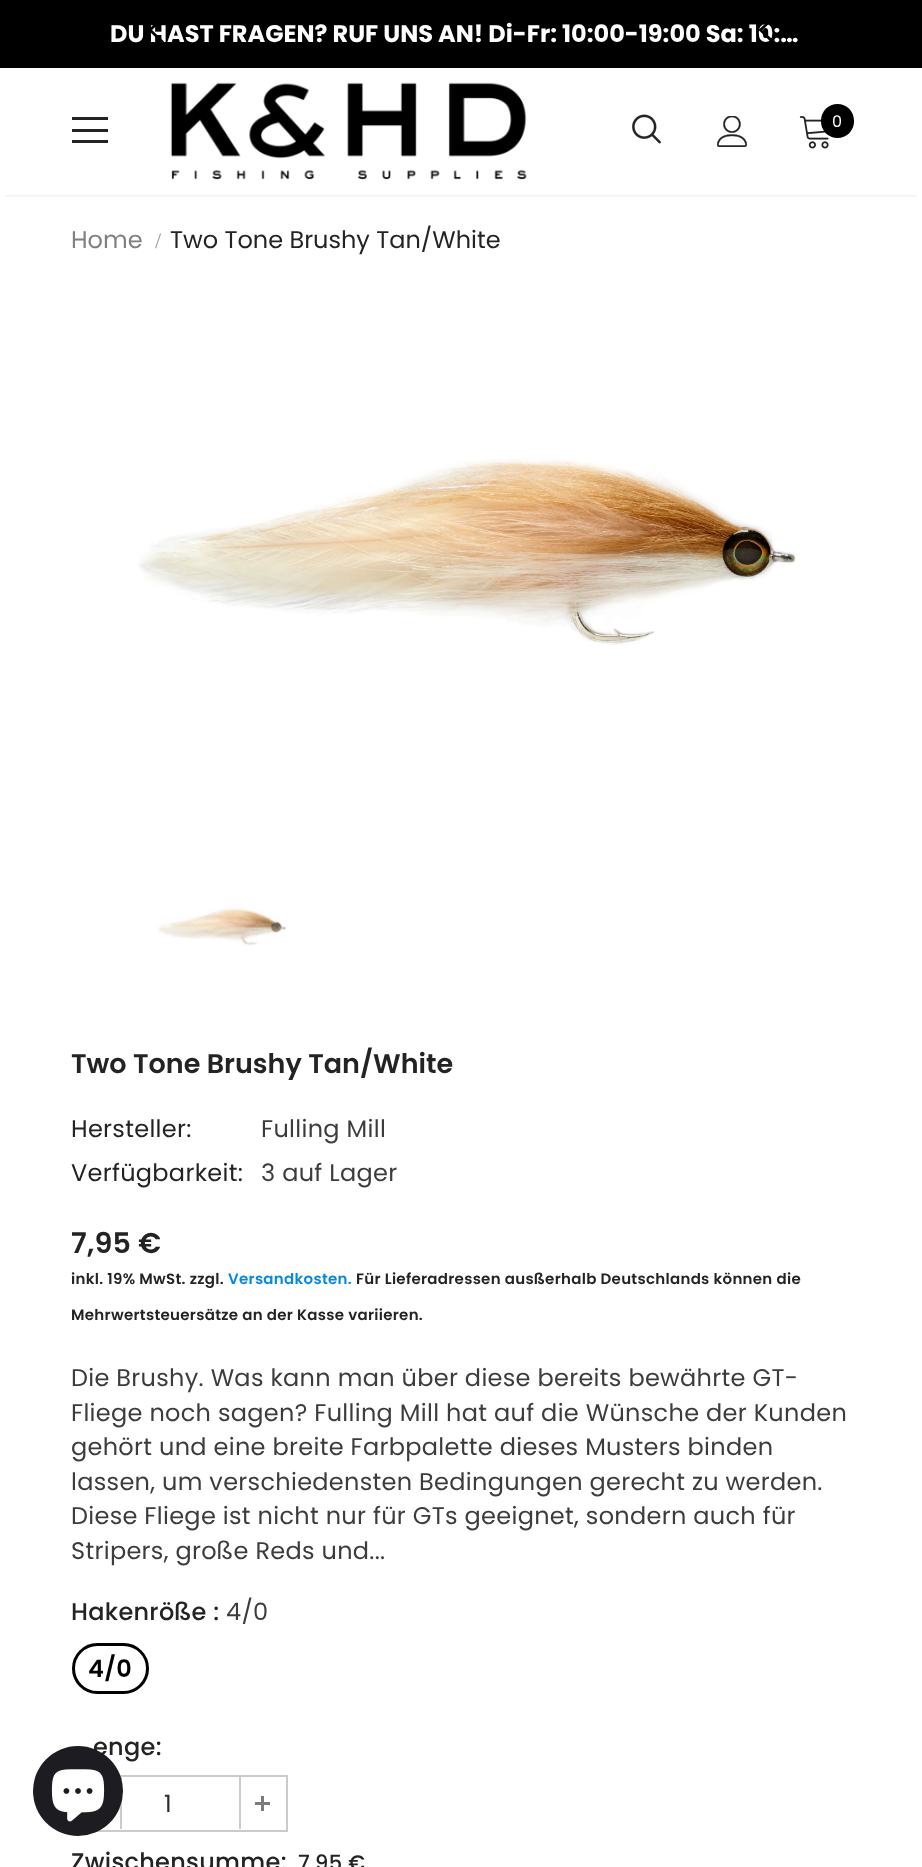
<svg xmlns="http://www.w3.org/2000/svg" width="922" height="1867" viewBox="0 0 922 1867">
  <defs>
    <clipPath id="clip1"><rect x="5" y="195" width="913" height="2"/></clipPath>
  </defs>
  <rect width="100%" height="100%" fill="rgb(255,255,255)"/>
  <rect x="0" y="0" width="922" height="68" fill="rgb(0,0,0)"/>
  <text x="110" y="42" font-family="Poppins" font-size="24" font-weight="bold" fill="rgb(255,255,255)">DU HAST FRAGEN? RUF UNS AN! Di-Fr: 10:00-19:00 Sa: 10:…</text>
  <path d="M164 18.5L162 16.5L148 30L162 43.5L164 41.5L152 30Z" fill="rgb(0,0,0)"/>
  <path d="M772.5 43.5L774.5 41.5L762.5 30L774.5 18.5L772.5 16.5L758.5 30Z" fill="rgb(0,0,0)"/>
  <g clip-path="url(#clip1)">
    <rect x="5" y="77" width="913" height="118" fill="rgba(0,0,0,0.12)" filter="blur(2px)"/>
  </g>
  <rect x="72" y="117" width="36" height="3" fill="rgb(35,35,35)"/>
  <rect x="72" y="129" width="36" height="3" fill="rgb(35,35,35)"/>
  <rect x="72" y="140" width="36" height="3" fill="rgb(35,35,35)"/>
  <image x="170" y="82" width="357" height="98" href="pic1.png"/>
  <image x="632" y="114" width="29" height="30" href="pic2.png"/>
  <image x="717" y="116" width="31" height="31" href="pic3.png"/>
  <image x="799" y="116" width="30" height="33" href="pic4.png"/>
  <rect x="821" y="104" width="33" height="34" rx="16.5" fill="rgb(0,0,0)"/>
  <text x="832" y="127" font-family="Poppins" font-size="16" fill="rgb(255,255,255)">0</text>
  <text x="71" y="248" font-family="Poppins" font-size="24" fill="rgb(128,128,128)">Home</text>
  <text x="155" y="248" font-family="Liberation Serif" font-size="22" fill="rgb(153,153,153)">/</text>
  <text x="170" y="248" font-family="Poppins" font-size="24" fill="rgb(35,35,35)">Two Tone Brushy Tan/White</text>
  <image x="138" y="456" width="658" height="190" href="pic5.png"/>
  <image x="157" y="908" width="129" height="38" href="pic6.png"/>
  <text x="71" y="1073" font-family="Poppins" font-size="27" font-weight="600" fill="rgb(35,35,35)">Two Tone Brushy Tan/White</text>
  <text x="71" y="1137" font-family="Poppins" font-size="24" letter-spacing="0.3" fill="rgb(35,35,35)">Hersteller:</text>
  <text x="261" y="1137" font-family="Poppins" font-size="24" letter-spacing="0.3" fill="rgb(60,60,60)">Fulling Mill</text>
  <text x="71" y="1181" font-family="Poppins" font-size="24" letter-spacing="0.3" fill="rgb(35,35,35)">Verfügbarkeit:</text>
  <text x="261" y="1181" font-family="Poppins" font-size="24" letter-spacing="0.3" fill="rgb(60,60,60)">3 auf Lager</text>
  <text x="71" y="1253" font-family="Poppins" font-size="28.5" font-weight="600" letter-spacing="0.3" fill="rgb(35,35,35)">7,95 €</text>
  <text x="71" y="1284" font-family="Poppins" font-size="15" font-weight="600" letter-spacing="0.3" fill="rgb(35,35,35)">inkl. 19% MwSt. zzgl.</text>
  <text x="228" y="1284" font-family="Poppins" font-size="15" font-weight="600" letter-spacing="0.3" fill="rgb(6,136,226)">Versandkosten.</text>
  <g font-family="Poppins" font-size="15" font-weight="600" letter-spacing="0.3" fill="rgb(35,35,35)">
    <text x="356" y="1284">Für Lieferadressen ausßerhalb Deutschlands können die</text>
    <text x="71" y="1320">Mehrwertsteuersätze an der Kasse variieren.</text>
  </g>
  <g font-family="Poppins" font-size="24" letter-spacing="0.3" fill="rgb(60,60,60)">
    <text>
      <tspan x="71" y="1386">Die Brushy. Was kann man über diese bereits bewährte GT-</tspan>
      <tspan x="71" y="1421">Fliege noch sagen? Fulling Mill hat auf die Wünsche der Kunden</tspan>
      <tspan x="71" y="1455">gehört und eine breite Farbpalette dieses Musters binden</tspan>
      <tspan x="71" y="1490">lassen, um verschiedensten Bedingungen gerecht zu werden.</tspan>
      <tspan x="71" y="1524">Diese Fliege ist nicht nur für GTs geeignet, sondern auch für</tspan>
      <tspan x="71" y="1559">Stripers, große Reds und...</tspan>
    </text>
  </g>
  <text x="71" y="1620" font-family="Poppins" font-size="24" font-weight="500" letter-spacing="0.3" fill="rgb(35,35,35)">Hakenröße :</text>
  <text x="226" y="1620" font-family="Poppins" font-size="24" letter-spacing="0.3" fill="rgb(60,60,60)">4/0</text>
  <rect x="73" y="1644" width="75" height="49" rx="24.5" fill="none" stroke="rgb(231,231,231)" stroke-width="2"/>
  <rect x="73.5" y="1644.5" width="74" height="48" rx="24" fill="none" stroke="rgb(0,0,0)" stroke-width="3"/>
  <text x="88" y="1677" font-family="Poppins" font-size="24" font-weight="600" letter-spacing="0.3" fill="rgb(0,0,0)">4/0</text>
  <text x="93" y="1755" font-family="Poppins" font-size="24" font-weight="500" letter-spacing="0.3" fill="rgb(35,35,35)">enge:</text>
  <rect x="73" y="1776" width="214" height="55" fill="none" stroke="rgb(203,203,203)" stroke-width="2"/>
  <rect x="120" y="1776" width="2" height="53" fill="rgb(203,203,203)"/>
  <text x="164" y="1812" font-family="Poppins" font-size="24" fill="rgb(45,45,45)">1</text>
  <rect x="239" y="1776" width="2" height="53" fill="rgb(203,203,203)"/>
  <rect x="255" y="1802" width="15" height="3" fill="rgb(123,123,123)"/>
  <rect x="261" y="1796" width="3" height="15" fill="rgb(123,123,123)"/>
  <text x="71" y="1870" font-family="Poppins" font-size="24" font-weight="500" letter-spacing="0.3" fill="rgb(35,35,35)">Zwischensumme:</text>
  <text x="298" y="1870" font-family="Poppins" font-size="21" font-weight="500" letter-spacing="0.3" fill="rgb(35,35,35)">7,95 €</text>
  <circle cx="78" cy="1791" r="45" fill="rgb(29,29,33)"/>
  <image x="51" y="1769" width="54" height="53" href="pic7.png"/>
</svg>
